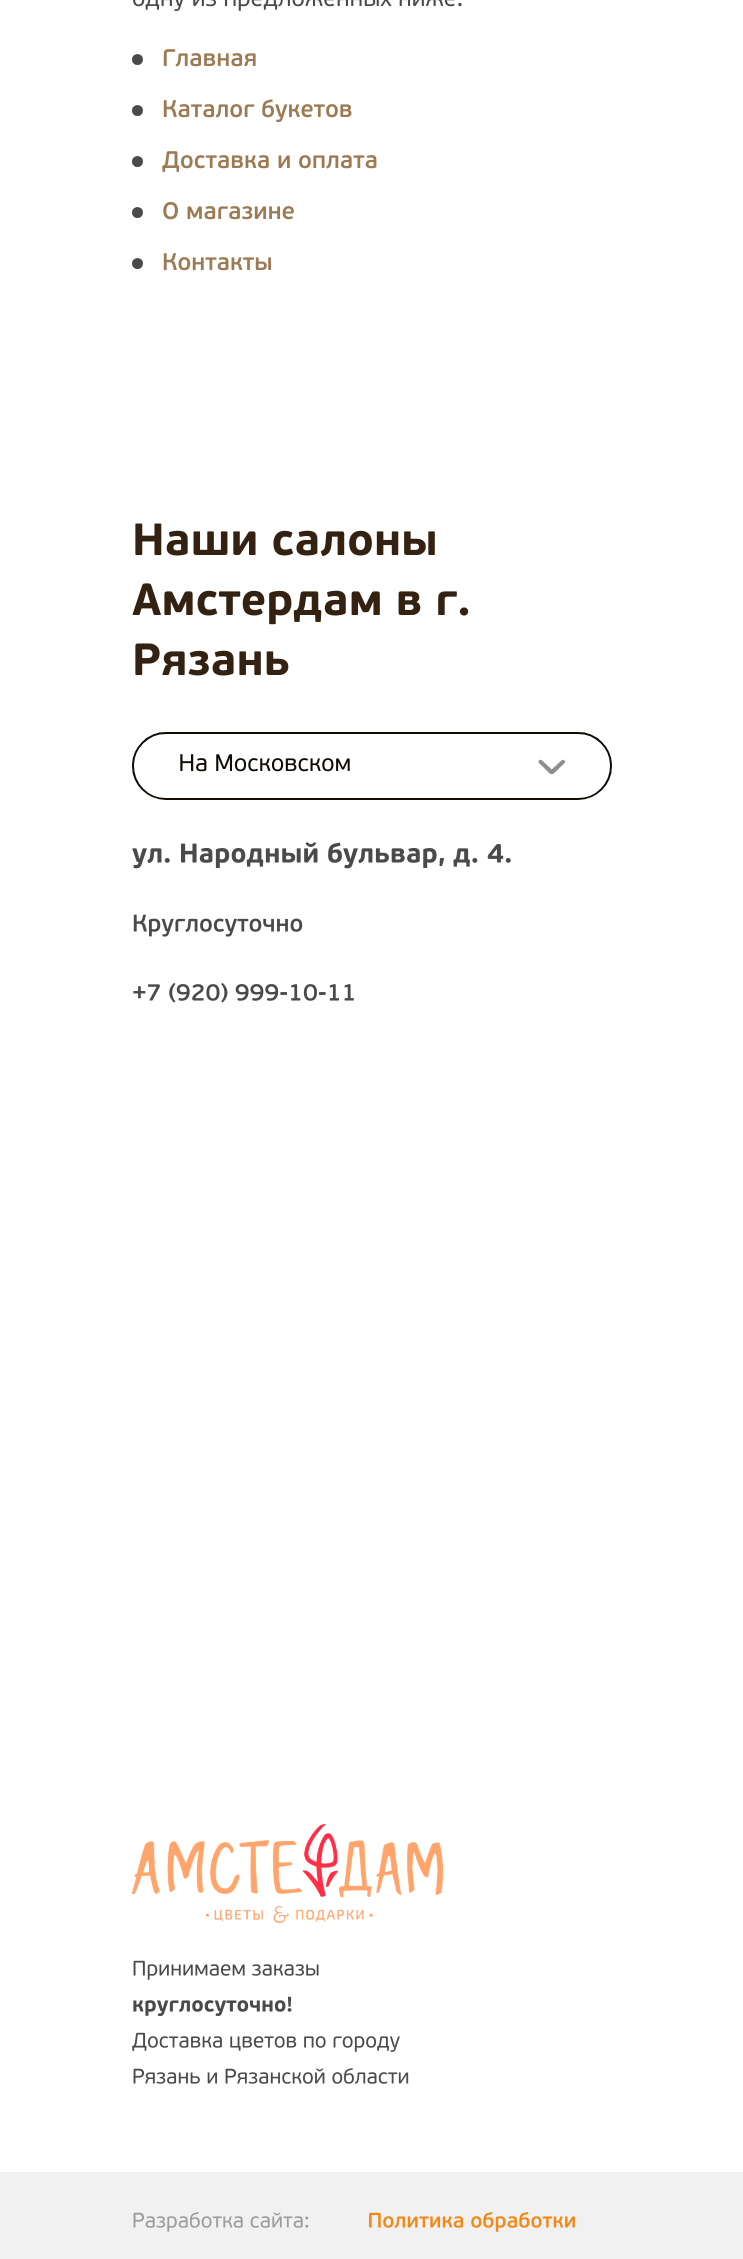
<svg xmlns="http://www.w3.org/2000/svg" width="743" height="2259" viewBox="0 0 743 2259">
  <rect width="100%" height="100%" fill="rgb(255,255,255)"/>
  <image x="133" y="0" width="329" height="11" href="pic1.png"/>
  <circle cx="137.5" cy="59.5" r="5.5" fill="rgb(74,74,74)"/>
  <image x="163" y="49" width="93" height="18" href="pic2.png"/>
  <circle cx="137.5" cy="110.5" r="5.5" fill="rgb(74,74,74)"/>
  <image x="163" y="99" width="189" height="24" href="pic3.png"/>
  <circle cx="137.5" cy="161.5" r="5.5" fill="rgb(74,74,74)"/>
  <image x="162" y="151" width="215" height="21" href="pic4.png"/>
  <circle cx="137.5" cy="212.5" r="5.5" fill="rgb(74,74,74)"/>
  <image x="163" y="201" width="131" height="19" href="pic5.png"/>
  <circle cx="137.5" cy="263.5" r="5.5" fill="rgb(74,74,74)"/>
  <image x="163" y="253" width="108" height="18" href="pic6.png"/>
  <image x="135" y="523" width="300" height="33" href="pic7.png"/>
  <image x="132" y="583" width="337" height="42" href="pic8.png"/>
  <image x="135" y="643" width="154" height="33" href="pic9.png"/>
  <rect x="133" y="733" width="478" height="66" rx="33" fill="none" stroke="rgb(17,11,5)" stroke-width="2"/>
  <image x="180" y="754" width="170" height="18" href="pic10.png"/>
  <image x="538" y="759" width="28" height="15" href="pic11.png"/>
  <image x="132" y="842" width="379" height="27" href="pic12.png"/>
  <image x="133" y="914" width="170" height="23" href="pic13.png"/>
  <image x="133" y="983" width="221" height="20" href="pic14.png"/>
  <image x="132" y="1824" width="311" height="99" href="pic15.png"/>
  <image x="133" y="1960" width="186" height="20" href="pic16.png"/>
  <image x="133" y="1996" width="159" height="20" href="pic17.png"/>
  <image x="132" y="2032" width="268" height="20" href="pic18.png"/>
  <image x="133" y="2068" width="276" height="16" href="pic19.png"/>
  <rect x="0" y="2172" width="743" height="87" fill="rgb(241,241,241)"/>
  <image x="133" y="2212" width="176" height="20" href="pic20.png"/>
  <image x="369" y="2212" width="206" height="20" href="pic21.png"/>
</svg>
